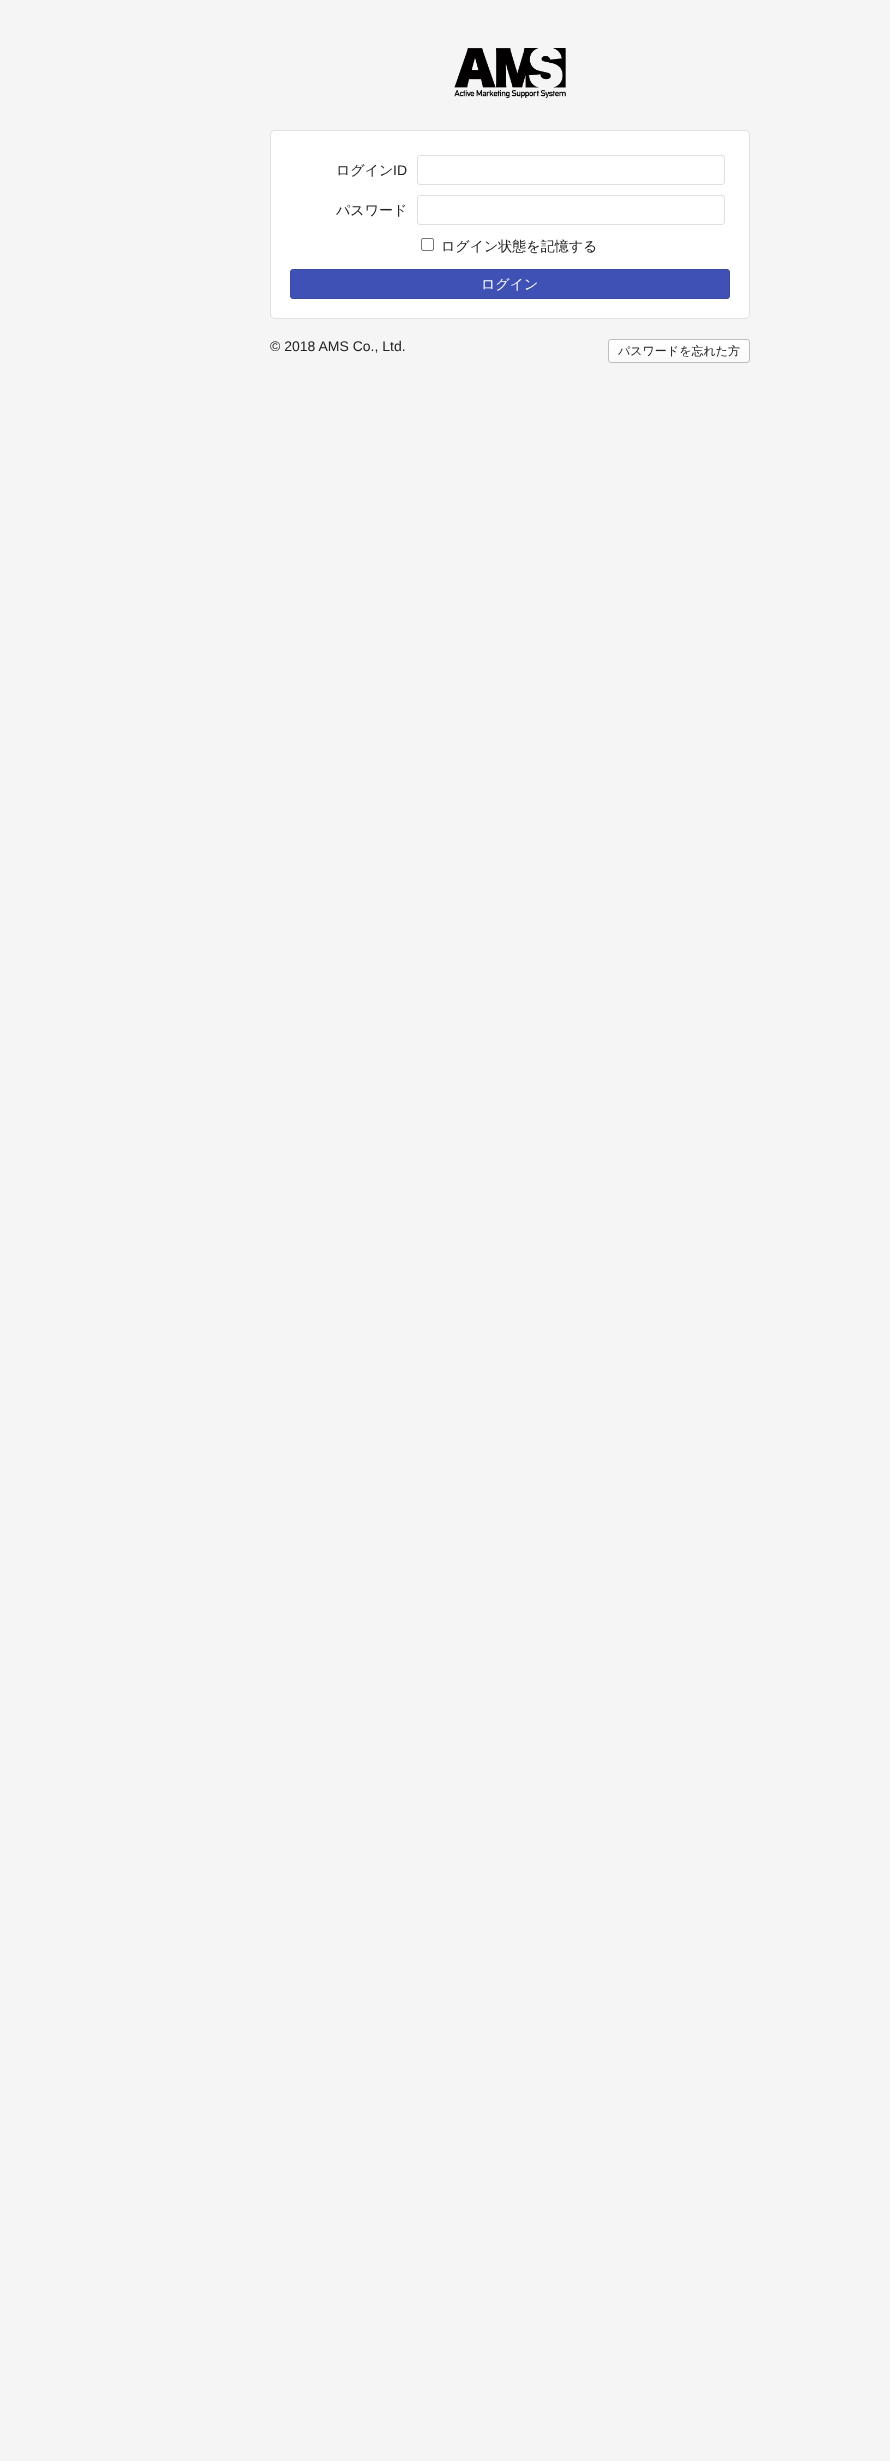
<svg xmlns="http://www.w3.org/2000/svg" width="890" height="2461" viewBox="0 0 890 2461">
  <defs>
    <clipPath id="clip1"><rect x="608" y="339" width="142" height="24" rx="3"/></clipPath>
    <linearGradient id="g1" gradientUnits="userSpaceOnUse" x1="679" y1="340" x2="679" y2="362"><stop offset="0" stop-color="rgb(255,255,255)"/><stop offset="1" stop-color="rgb(250,250,250)"/></linearGradient>
  </defs>
  <rect width="100%" height="100%" fill="rgb(245,245,245)"/>
  <image x="454" y="48" width="112" height="50" href="pic1.png"/>
  <rect x="270.5" y="130.5" width="479" height="188" rx="4.5" fill="rgb(255,255,255)" stroke="rgb(224,224,224)"/>
  <text x="336" y="175" font-family="WenQuanYi Zen Hei" font-size="14" font-weight="500" fill="rgb(33,33,33)">ログイン</text>
  <text x="393" y="175" font-family="Liberation Sans" font-size="14" fill="rgb(33,33,33)">ID</text>
  <rect x="417.5" y="155.5" width="307" height="29" rx="2.5" fill="none" stroke="rgb(224,224,224)"/>
  <text x="336" y="215" font-family="WenQuanYi Zen Hei" font-size="14" font-weight="500" fill="rgb(33,33,33)">パスワード</text>
  <rect x="417.5" y="195.5" width="307" height="29" rx="2.5" fill="none" stroke="rgb(224,224,224)"/>
  <rect x="421.5" y="238.5" width="12" height="12" rx="1.5" fill="none" stroke="rgb(118,118,118)"/>
  <text x="441" y="251" font-family="WenQuanYi Zen Hei" font-size="14" font-weight="500" fill="rgb(33,33,33)">ログイン状態を記憶する</text>
  <rect x="290.5" y="269.5" width="439" height="29" rx="2.5" fill="rgb(63,81,181)" stroke="rgb(56,73,162)"/>
  <text x="481" y="289" font-family="WenQuanYi Zen Hei" font-size="14" font-weight="500" fill="rgb(255,255,255)">ログイン</text>
  <text x="270" y="351" font-family="Liberation Sans" font-size="14" fill="rgb(33,33,33)">© 2018 AMS Co., Ltd.</text>
  <g clip-path="url(#clip1)">
    <rect x="608" y="340" width="142" height="22" fill="url(#g1)"/>
  </g>
  <rect x="608.5" y="339.5" width="141" height="23" rx="2.5" fill="none" stroke="rgb(189,189,189)"/>
  <text x="618" y="355" font-family="WenQuanYi Zen Hei" font-size="12" font-weight="500" fill="rgb(33,33,33)">パスワードを忘れた方</text>
</svg>
